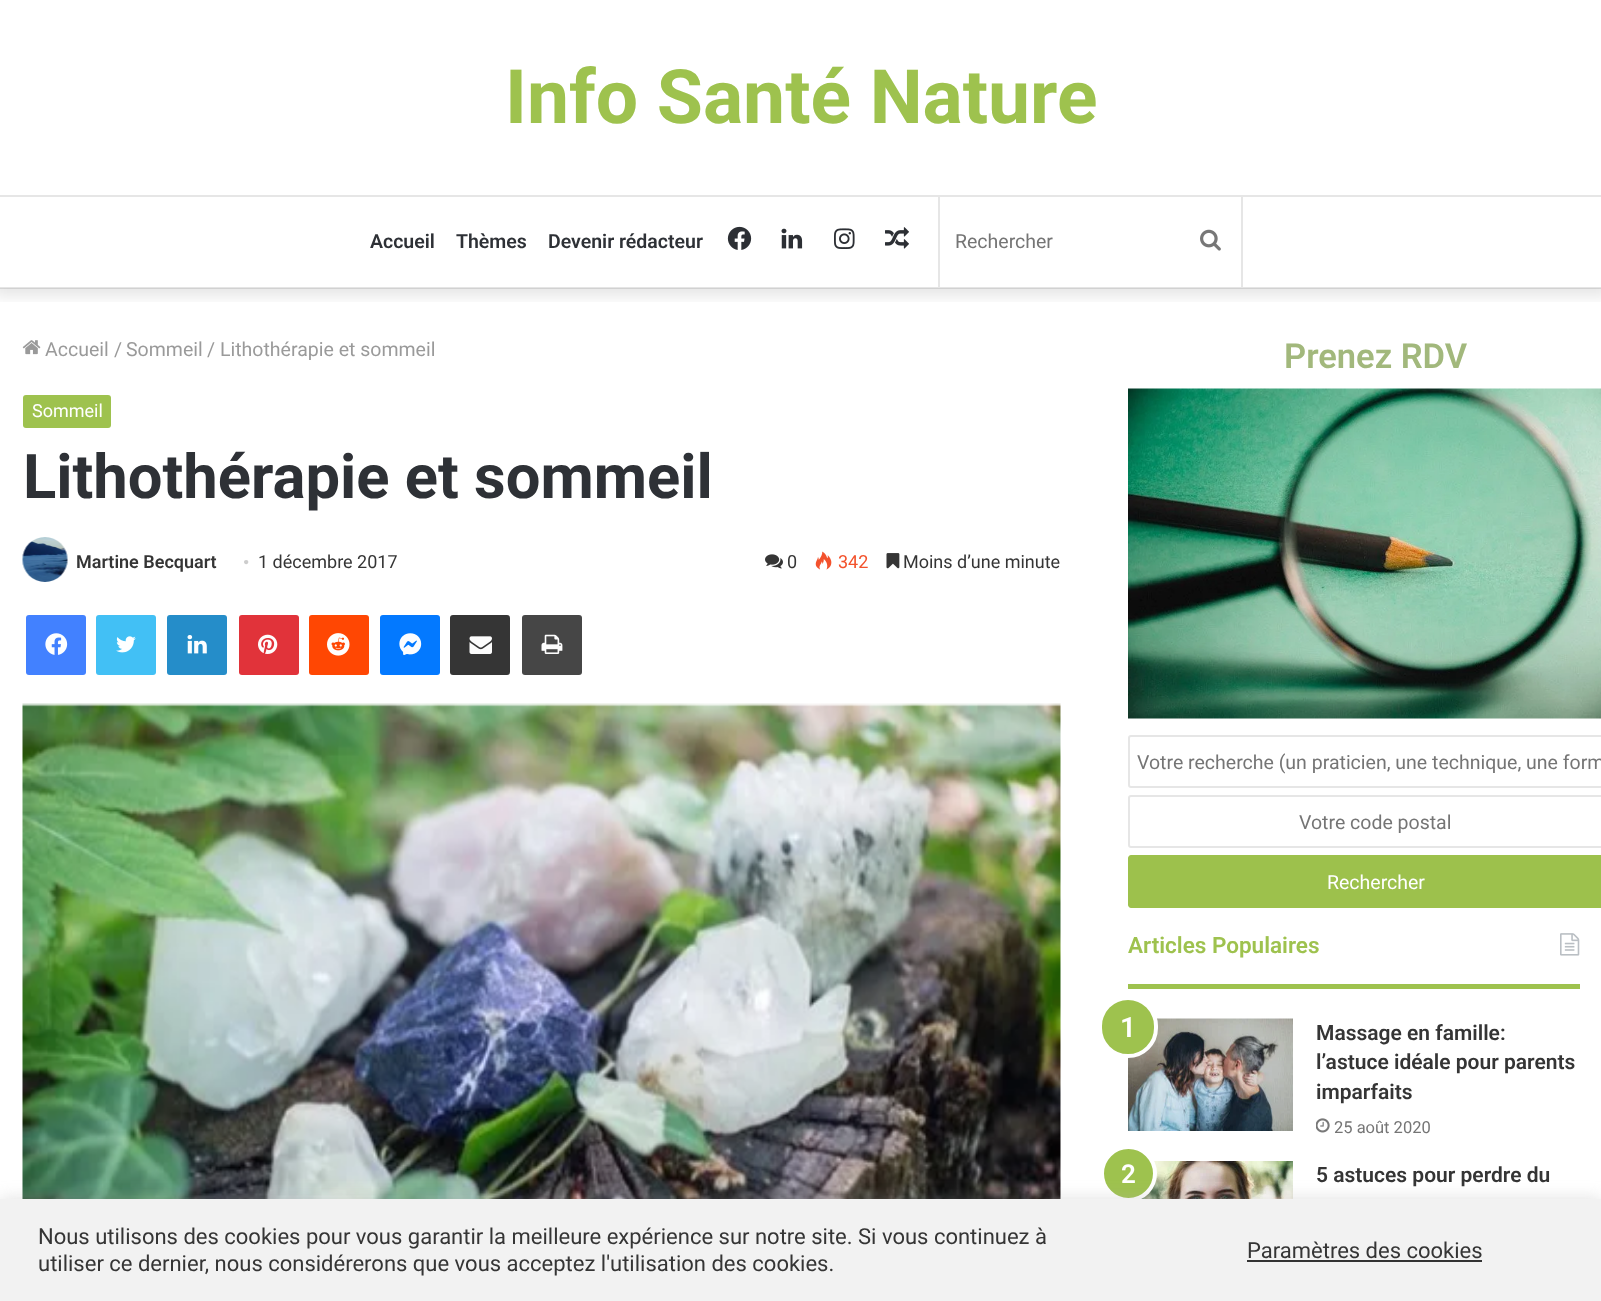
<svg xmlns="http://www.w3.org/2000/svg" width="1601" height="1301" viewBox="0 0 1601 1301">
  <defs>
    <clipPath id="clip1"><rect x="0" y="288" width="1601" height="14"/></clipPath>
  </defs>
  <rect width="100%" height="100%" fill="rgb(255,255,255)"/>
  <g clip-path="url(#clip1)">
    <rect x="-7" y="-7" width="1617" height="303" fill="rgba(0,0,0,0.1)" filter="blur(7.5px)"/>
  </g>
  <text x="505" y="123" font-family="Roboto" font-size="75" font-weight="bold" fill="rgb(158,194,78)">Info Santé Nature</text>
  <rect x="0" y="195" width="1601" height="2" fill="rgb(230,230,230)"/>
  <rect x="0" y="287" width="1601" height="2" fill="rgba(0,0,0,0.1)"/>
  <g font-family="Roboto" font-size="19.5" font-weight="600" fill="rgb(46,49,54)">
    <text x="370" y="248">Accueil</text>
    <text x="456" y="248">Thèmes</text>
    <text x="548" y="248">Devenir rédacteur</text>
  </g>
  <image x="727" y="226" width="25" height="24" href="pic1.png"/>
  <image x="781" y="228" width="22" height="21" href="pic2.png"/>
  <image x="834" y="228" width="21" height="21" href="pic3.png"/>
  <image x="885" y="227" width="24" height="22" href="pic4.png"/>
  <rect x="1241" y="197" width="2" height="90" fill="rgb(230,230,230)"/>
  <rect x="938" y="197" width="2" height="90" fill="rgb(230,230,230)"/>
  <text x="955" y="248" font-family="Roboto" font-size="19.5" fill="rgb(117,117,117)">Rechercher</text>
  <image x="1200" y="229" width="21" height="22" href="pic5.png"/>
  <image x="22" y="340" width="19" height="15" href="pic6.png"/>
  <g font-family="Roboto" font-size="19.5" fill="rgb(154,154,154)">
    <text x="45" y="356">Accueil</text>
    <text x="114" y="356">/</text>
    <text x="126" y="356">Sommeil</text>
    <text x="207" y="356">/</text>
    <text x="220" y="356">Lithothérapie et sommeil</text>
  </g>
  <rect x="23" y="395" width="88" height="33" rx="3" fill="rgb(158,194,78)"/>
  <text x="32" y="417" font-family="Roboto" font-size="18" fill="rgb(255,255,255)">Sommeil</text>
  <text x="23" y="498" font-family="Roboto" font-size="61.5" font-weight="bold" fill="rgb(46,49,54)">Lithothérapie et sommeil</text>
  <image x="22" y="537" width="46" height="45" href="pic7.png"/>
  <text x="76" y="568" font-family="Roboto" font-size="18" font-weight="600" fill="rgb(53,53,53)">Martine Becquart</text>
  <text x="243" y="568" font-family="Liberation Serif" font-size="18" fill="rgb(205,205,205)">•</text>
  <text x="258" y="568" font-family="Roboto" font-size="18" fill="rgb(53,53,53)">1 décembre 2017</text>
  <image x="765" y="554" width="18" height="15" href="pic8.png"/>
  <text x="787" y="568" font-family="Roboto" font-size="18" fill="rgb(53,53,53)">0</text>
  <image x="815" y="551" width="17" height="19" href="pic9.png"/>
  <text x="838" y="568" font-family="Roboto" font-size="18" fill="rgb(243,82,44)">342</text>
  <image x="886" y="553" width="14" height="16" href="pic10.png"/>
  <text x="903" y="568" font-family="Roboto" font-size="18" fill="rgb(53,53,53)">Moins d’une minute</text>
  <rect x="26" y="615" width="60" height="60" rx="3" fill="rgb(66,129,255)"/>
  <image x="45" y="633" width="23" height="22" href="pic11.png"/>
  <rect x="96" y="615" width="60" height="60" rx="3" fill="rgb(66,192,245)"/>
  <image x="116" y="636" width="20" height="17" href="pic12.png"/>
  <rect x="167" y="615" width="60" height="60" rx="3" fill="rgb(37,141,201)"/>
  <image x="187" y="635" width="20" height="19" href="pic13.png"/>
  <rect x="239" y="615" width="60" height="60" rx="3" fill="rgb(225,51,58)"/>
  <image x="258" y="634" width="20" height="20" href="pic14.png"/>
  <rect x="309" y="615" width="60" height="60" rx="3" fill="rgb(255,71,3)"/>
  <image x="327" y="633" width="23" height="23" href="pic15.png"/>
  <rect x="380" y="615" width="60" height="60" rx="3" fill="rgb(3,121,255)"/>
  <image x="399" y="633" width="23" height="22" href="pic16.png"/>
  <rect x="450" y="615" width="60" height="60" rx="3" fill="rgb(53,53,53)"/>
  <image x="469" y="636" width="23" height="18" href="pic17.png"/>
  <rect x="522" y="615" width="60" height="60" rx="3" fill="rgb(70,70,70)"/>
  <image x="541" y="634" width="22" height="20" href="pic18.png"/>
  <image x="22" y="703" width="1039" height="496" href="pic19.png"/>
  <text x="1284" y="368" font-family="Roboto" font-size="34.5" font-weight="600" fill="rgb(162,184,124)">Prenez RDV</text>
  <image x="1128" y="388" width="473" height="331" href="pic20.png"/>
  <rect x="1129" y="736" width="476" height="51" rx="2" fill="none" stroke="rgb(230,230,230)" stroke-width="2"/>
  <text x="1137" y="769" font-family="Roboto" font-size="19.5" fill="rgb(117,117,117)">Votre recherche (un praticien, une technique, une form</text>
  <rect x="1129" y="796" width="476" height="51" rx="2" fill="none" stroke="rgb(230,230,230)" stroke-width="2"/>
  <text x="1299" y="829" font-family="Roboto" font-size="19.5" fill="rgb(117,117,117)">Votre code postal</text>
  <path d="M1131 855H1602V908H1131C1129.5 908 1128 906.5 1128 905V858C1128 856.5 1129.5 855 1131 855Z" fill="rgb(157,193,76)"/>
  <text x="1327" y="889" font-family="Roboto" font-size="19.5" fill="rgb(255,255,255)">Rechercher</text>
  <rect x="1128" y="984" width="452" height="5" fill="rgb(158,194,78)"/>
  <text x="1128" y="953" font-family="Roboto" font-size="22.5" font-weight="600" fill="rgb(158,194,78)">Articles Populaires</text>
  <image x="1560" y="933" width="20" height="23" href="pic21.png"/>
  <image x="1128" y="1018" width="165" height="113" href="pic22.png"/>
  <rect x="1100" y="998" width="56" height="58" rx="28" fill="rgb(158,194,78)" stroke="rgb(255,255,255)" stroke-width="4"/>
  <text x="1120" y="1037" font-family="Roboto" font-size="28" font-weight="600" fill="rgb(255,255,255)">1</text>
  <g font-family="Roboto" font-size="21" font-weight="600" fill="rgb(53,53,53)">
    <text>
      <tspan x="1316" y="1040">Massage en famille:</tspan>
      <tspan x="1316" y="1069">l’astuce idéale pour parents</tspan>
      <tspan x="1316" y="1099">imparfaits</tspan>
    </text>
  </g>
  <image x="1316" y="1118" width="14" height="15" href="pic23.png"/>
  <text x="1334" y="1133" font-family="Roboto" font-size="16.5" fill="rgb(117,117,117)">25 août 2020</text>
  <image x="1141" y="1161" width="152" height="38" href="pic24.png"/>
  <circle cx="1128.5" cy="1173.5" r="26.5" fill="rgb(158,194,78)" stroke="rgb(255,255,255)" stroke-width="4"/>
  <text x="1121" y="1183" font-family="Roboto" font-size="26" font-weight="600" fill="rgb(255,255,255)">2</text>
  <text x="1316" y="1182" font-family="Roboto" font-size="21" font-weight="600" fill="rgb(53,53,53)">5 astuces pour perdre du</text>
  <rect x="0" y="1197" width="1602" height="104" fill="rgba(172,171,171,0.3)" filter="blur(7.5px)"/>
  <rect x="0" y="1199" width="1601" height="102" fill="rgb(242,242,242)"/>
  <g font-family="Roboto" font-size="22" fill="rgb(53,53,53)">
    <text>
      <tspan x="38" y="1244">Nous utilisons des cookies pour vous garantir la meilleure expérience sur notre site. Si vous continuez à</tspan>
      <tspan x="38" y="1271">utiliser ce dernier, nous considérerons que vous acceptez l'utilisation des cookies.</tspan>
    </text>
    <text x="1247" y="1258">Paramètres des cookies</text>
  </g>
  <rect x="1247" y="1260" width="235" height="2" fill="rgb(51,51,51)"/>
</svg>
